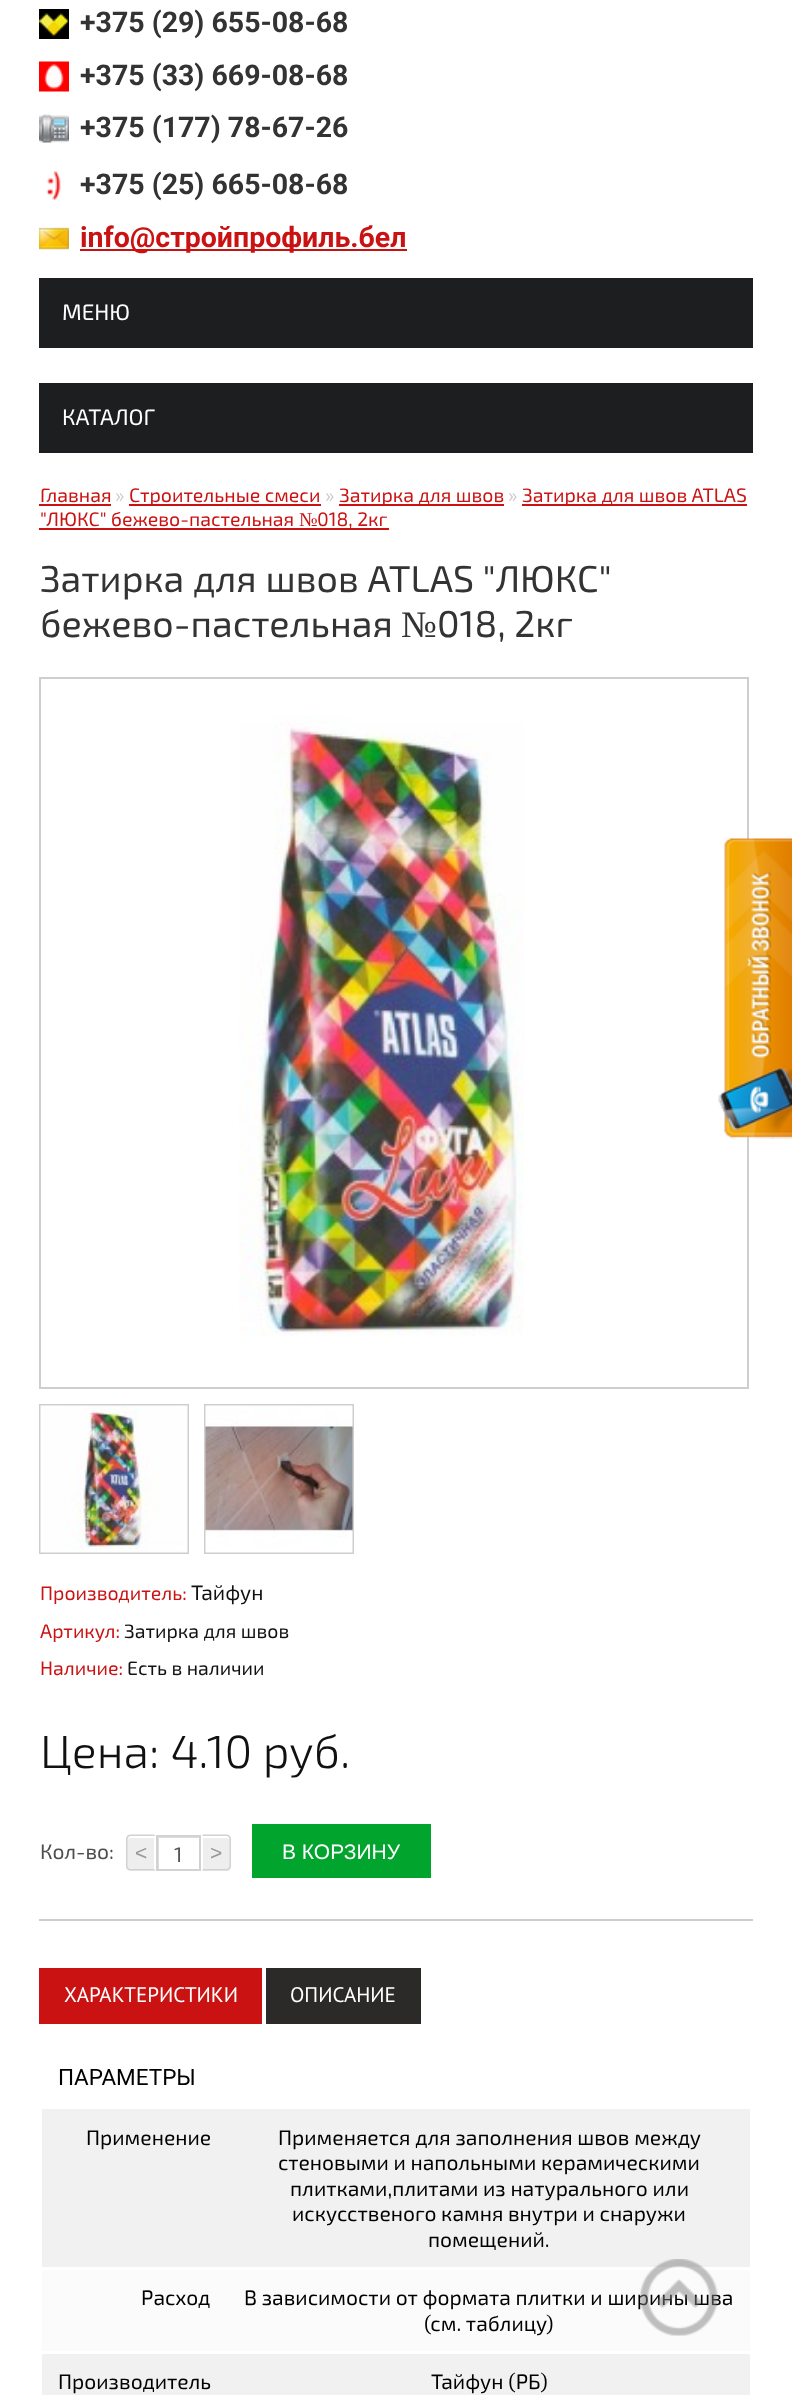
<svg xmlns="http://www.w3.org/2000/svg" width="792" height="2395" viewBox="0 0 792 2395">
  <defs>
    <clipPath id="clip1"><rect x="158" y="1836" width="42" height="33"/></clipPath>
  </defs>
  <rect width="100%" height="100%" fill="rgb(255,255,255)"/>
  <image x="39" y="9" width="30" height="30" href="pic1.png"/>
  <text x="80" y="32" font-family="Roboto" font-size="28.5" font-weight="bold" fill="rgb(51,51,51)">+375 (29) 655-08-68</text>
  <image x="39" y="61" width="30" height="31" href="pic2.png"/>
  <text x="80" y="85" font-family="Roboto" font-size="28.5" font-weight="bold" fill="rgb(51,51,51)">+375 (33) 669-08-68</text>
  <image x="39" y="114" width="30" height="29" href="pic3.png"/>
  <text x="80" y="137" font-family="Roboto" font-size="28.5" font-weight="bold" fill="rgb(51,51,51)">+375 (177) 78-67-26</text>
  <image x="46" y="171" width="15" height="29" href="pic4.png"/>
  <text x="80" y="194" font-family="Roboto" font-size="28.5" font-weight="bold" fill="rgb(51,51,51)">+375 (25) 665-08-68</text>
  <image x="39" y="227" width="30" height="23" href="pic5.png"/>
  <rect x="80" y="249" width="327" height="2" fill="rgb(202,18,18)"/>
  <text x="80" y="247" font-family="Roboto" font-size="28.5" font-weight="bold" fill="rgb(202,18,18)">info@стройпрофиль.бел</text>
  <rect x="39" y="278" width="714" height="70" fill="rgb(29,30,32)"/>
  <text x="62" y="320" font-family="'Exo 2'" font-size="22.5" fill="rgb(255,255,255)">МЕНЮ</text>
  <rect x="39" y="383" width="714" height="70" fill="rgb(29,30,32)"/>
  <text x="62" y="425" font-family="'Exo 2'" font-size="22.5" fill="rgb(255,255,255)">КАТАЛОГ</text>
  <text x="40" y="502" font-family="'Exo 2'" font-size="19.5" fill="rgb(202,18,18)">Главная</text>
  <rect x="39" y="504" width="72" height="2" fill="rgb(202,18,18)"/>
  <text x="115" y="502" font-family="'Exo 2'" font-size="19.5" fill="rgb(204,204,204)">»</text>
  <rect x="129" y="504" width="192" height="2" fill="rgb(202,18,18)"/>
  <text x="129" y="502" font-family="'Exo 2'" font-size="19.5" fill="rgb(202,18,18)">Строительные смеси</text>
  <text x="325" y="502" font-family="'Exo 2'" font-size="19.5" fill="rgb(204,204,204)">»</text>
  <rect x="339" y="504" width="165" height="2" fill="rgb(202,18,18)"/>
  <text x="339" y="502" font-family="'Exo 2'" font-size="19.5" fill="rgb(202,18,18)">Затирка для швов</text>
  <text x="508" y="502" font-family="'Exo 2'" font-size="19.5" fill="rgb(204,204,204)">»</text>
  <rect x="522" y="504" width="225" height="2" fill="rgb(202,18,18)"/>
  <g font-family="'Exo 2'" font-size="19.5" fill="rgb(202,18,18)">
    <text x="522" y="502">Затирка для швов ATLAS</text>
    <text x="40" y="526">"ЛЮКС" бежево-пастельная</text>
  </g>
  <text x="299" y="526" font-family="Liberation Serif" font-size="19.5" fill="rgb(202,18,18)">№</text>
  <rect x="39" y="528" width="350" height="2" fill="rgb(202,18,18)"/>
  <text x="317" y="526" font-family="'Exo 2'" font-size="19.5" fill="rgb(202,18,18)">018, 2кг</text>
  <g font-family="'Exo 2'" font-size="37.5" fill="rgb(51,51,51)">
    <text>
      <tspan x="40" y="592" word-spacing="0.5">Затирка для швов ATLAS "ЛЮКС"</tspan>
      <tspan x="40" y="637">бежево-пастельная</tspan>
    </text>
  </g>
  <text x="401" y="637" font-family="Liberation Serif" font-size="37.5" fill="rgb(51,51,51)">№</text>
  <text x="437" y="637" font-family="'Exo 2'" font-size="37.5" fill="rgb(51,51,51)">018, 2кг</text>
  <rect x="40" y="678" width="708" height="710" fill="none" stroke="rgb(206,206,206)" stroke-width="2"/>
  <image x="239" y="716" width="285" height="621" href="pic6.png"/>
  <rect x="40" y="1405" width="148" height="148" fill="none" stroke="rgb(206,206,206)" stroke-width="2"/>
  <image x="40" y="1405" width="148" height="148" href="pic7.png"/>
  <rect x="205" y="1405" width="148" height="148" fill="none" stroke="rgb(206,206,206)" stroke-width="2"/>
  <image x="205" y="1405" width="148" height="148" href="pic8.png"/>
  <text x="40" y="1600" font-family="'Exo 2'" font-size="19.5" fill="rgb(202,18,18)">Производитель:</text>
  <text x="191" y="1600" font-family="'Exo 2'" font-size="21" fill="rgb(17,17,17)">Тайфун</text>
  <text x="40" y="1638" font-family="'Exo 2'" font-size="19.5" fill="rgb(202,18,18)">Артикул:</text>
  <text x="124" y="1638" font-family="'Exo 2'" font-size="19.5" fill="rgb(17,17,17)">Затирка для швов</text>
  <text x="40" y="1675" font-family="'Exo 2'" font-size="19.5" fill="rgb(202,18,18)">Наличие:</text>
  <text x="127" y="1675" font-family="'Exo 2'" font-size="19.5" fill="rgb(17,17,17)">Есть в наличии</text>
  <text x="40" y="1768" font-family="'Exo 2'" font-size="46.5" font-weight="300" fill="rgb(17,17,17)">Цена: 4.10 руб.</text>
  <rect x="39" y="1919" width="714" height="2" fill="rgb(206,206,206)"/>
  <text x="40" y="1859" font-family="'Exo 2'" font-size="21" fill="rgb(77,77,77)">Кол-во:</text>
  <path d="M131 1835H155V1871H131C128 1871 126 1869 126 1866V1840C126 1837 128 1835 131 1835Z" fill="rgb(238,238,238)"/>
  <path d="M130 1838H154V1869H155V1836H131C129.5 1836 128 1837.5 128 1839V1840C128 1839 129 1838 130 1838Z" fill="rgb(255,255,255)"/>
  <path d="M130.5 1834.5H154.5V1870.5H130.5C128 1870.5 126 1868.5 126 1866V1839C126 1836.5 128 1834.5 130.5 1834.5ZM130.5 1836H154.5V1869H130.5C129 1869 127.5 1867.5 127.5 1866V1839C127.5 1837.5 129 1836 130.5 1836Z" fill="rgb(210,210,210)" fill-rule="evenodd"/>
  <text x="135" y="1860" font-family="Liberation Sans" font-size="21" fill="rgb(153,153,153)">&lt;</text>
  <g clip-path="url(#clip1)">
    <path d="M9 1688H348V2018H9ZM159 1838H201V1870H159Z" fill="rgb(221,221,221)" fill-rule="evenodd"/>
  </g>
  <rect x="157" y="1836" width="43" height="34" fill="none" stroke="rgb(210,210,210)" stroke-width="2"/>
  <text x="174" y="1862" font-family="'Exo 2'" font-size="21" fill="rgb(85,85,85)">1</text>
  <path d="M203 1835H226C229 1835 231 1837 231 1840V1866C231 1869 229 1871 226 1871H203Z" fill="rgb(238,238,238)"/>
  <path d="M203 1836V1838H226C228 1838 230 1839 230 1840C230 1838 229.5 1836 227 1836Z" fill="rgb(255,255,255)"/>
  <path d="M202.5 1834.5H226.5C229 1834.5 231 1836.5 231 1839V1866C231 1868.5 229 1870.5 226.5 1870.5H202.5ZM202.5 1836H226.5C228 1836 229.5 1837.5 229.5 1839V1866C229.5 1867.5 228 1869 226.5 1869H202.5Z" fill="rgb(210,210,210)" fill-rule="evenodd"/>
  <text x="210" y="1860" font-family="Liberation Sans" font-size="21" fill="rgb(153,153,153)">&gt;</text>
  <rect x="252" y="1824" width="179" height="54" fill="rgb(1,165,45)"/>
  <text x="282" y="1859" font-family="Liberation Sans" font-size="21" fill="rgb(255,255,255)">В КОРЗИНУ</text>
  <rect x="39" y="1968" width="223" height="56" fill="rgb(202,18,18)"/>
  <text x="64" y="2002" font-family="PT Sans" font-size="21" fill="rgb(255,255,255)">ХАРАКТЕРИСТИКИ</text>
  <rect x="266" y="1968" width="155" height="56" fill="rgb(43,42,41)"/>
  <text x="290" y="2002" font-family="PT Sans" font-size="21" fill="rgb(255,255,255)">ОПИСАНИЕ</text>
  <text x="58" y="2085" font-family="Roboto" font-size="22.5" fill="rgb(0,0,0)">ПАРАМЕТРЫ</text>
  <rect x="42" y="2109" width="708" height="158" fill="rgb(241,241,241)"/>
  <g font-family="'Exo 2'" font-size="21" fill="rgb(0,0,0)">
    <text x="86" y="2145">Применение</text>
    <text>
      <tspan x="278" y="2145">Применяется для заполнения швов между</tspan>
      <tspan x="278" y="2170">стеновыми и напольными керамическими</tspan>
    </text>
    <text x="290" y="2196">плитками,плитами из натурального или</text>
    <text x="292" y="2221">искусственого камня внутри и снаружи</text>
    <text x="428" y="2247">помещений.</text>
  </g>
  <rect x="42" y="2270" width="708" height="81" fill="rgb(251,251,251)"/>
  <g font-family="'Exo 2'" font-size="21" fill="rgb(0,0,0)">
    <text x="141" y="2305">Расход</text>
    <text x="244" y="2305">В зависимости от формата плитки и ширины шва</text>
    <text x="424" y="2331">(см. таблицу)</text>
  </g>
  <rect x="42" y="2354" width="708" height="41" fill="rgb(241,241,241)"/>
  <g font-family="'Exo 2'" font-size="21" fill="rgb(0,0,0)">
    <text x="58" y="2389">Производитель</text>
    <text x="431" y="2389">Тайфун (РБ)</text>
  </g>
  <image x="718" y="838" width="74" height="301" href="pic9.png"/>
  <image x="640" y="2259" width="78" height="77" href="pic10.png"/>
</svg>
